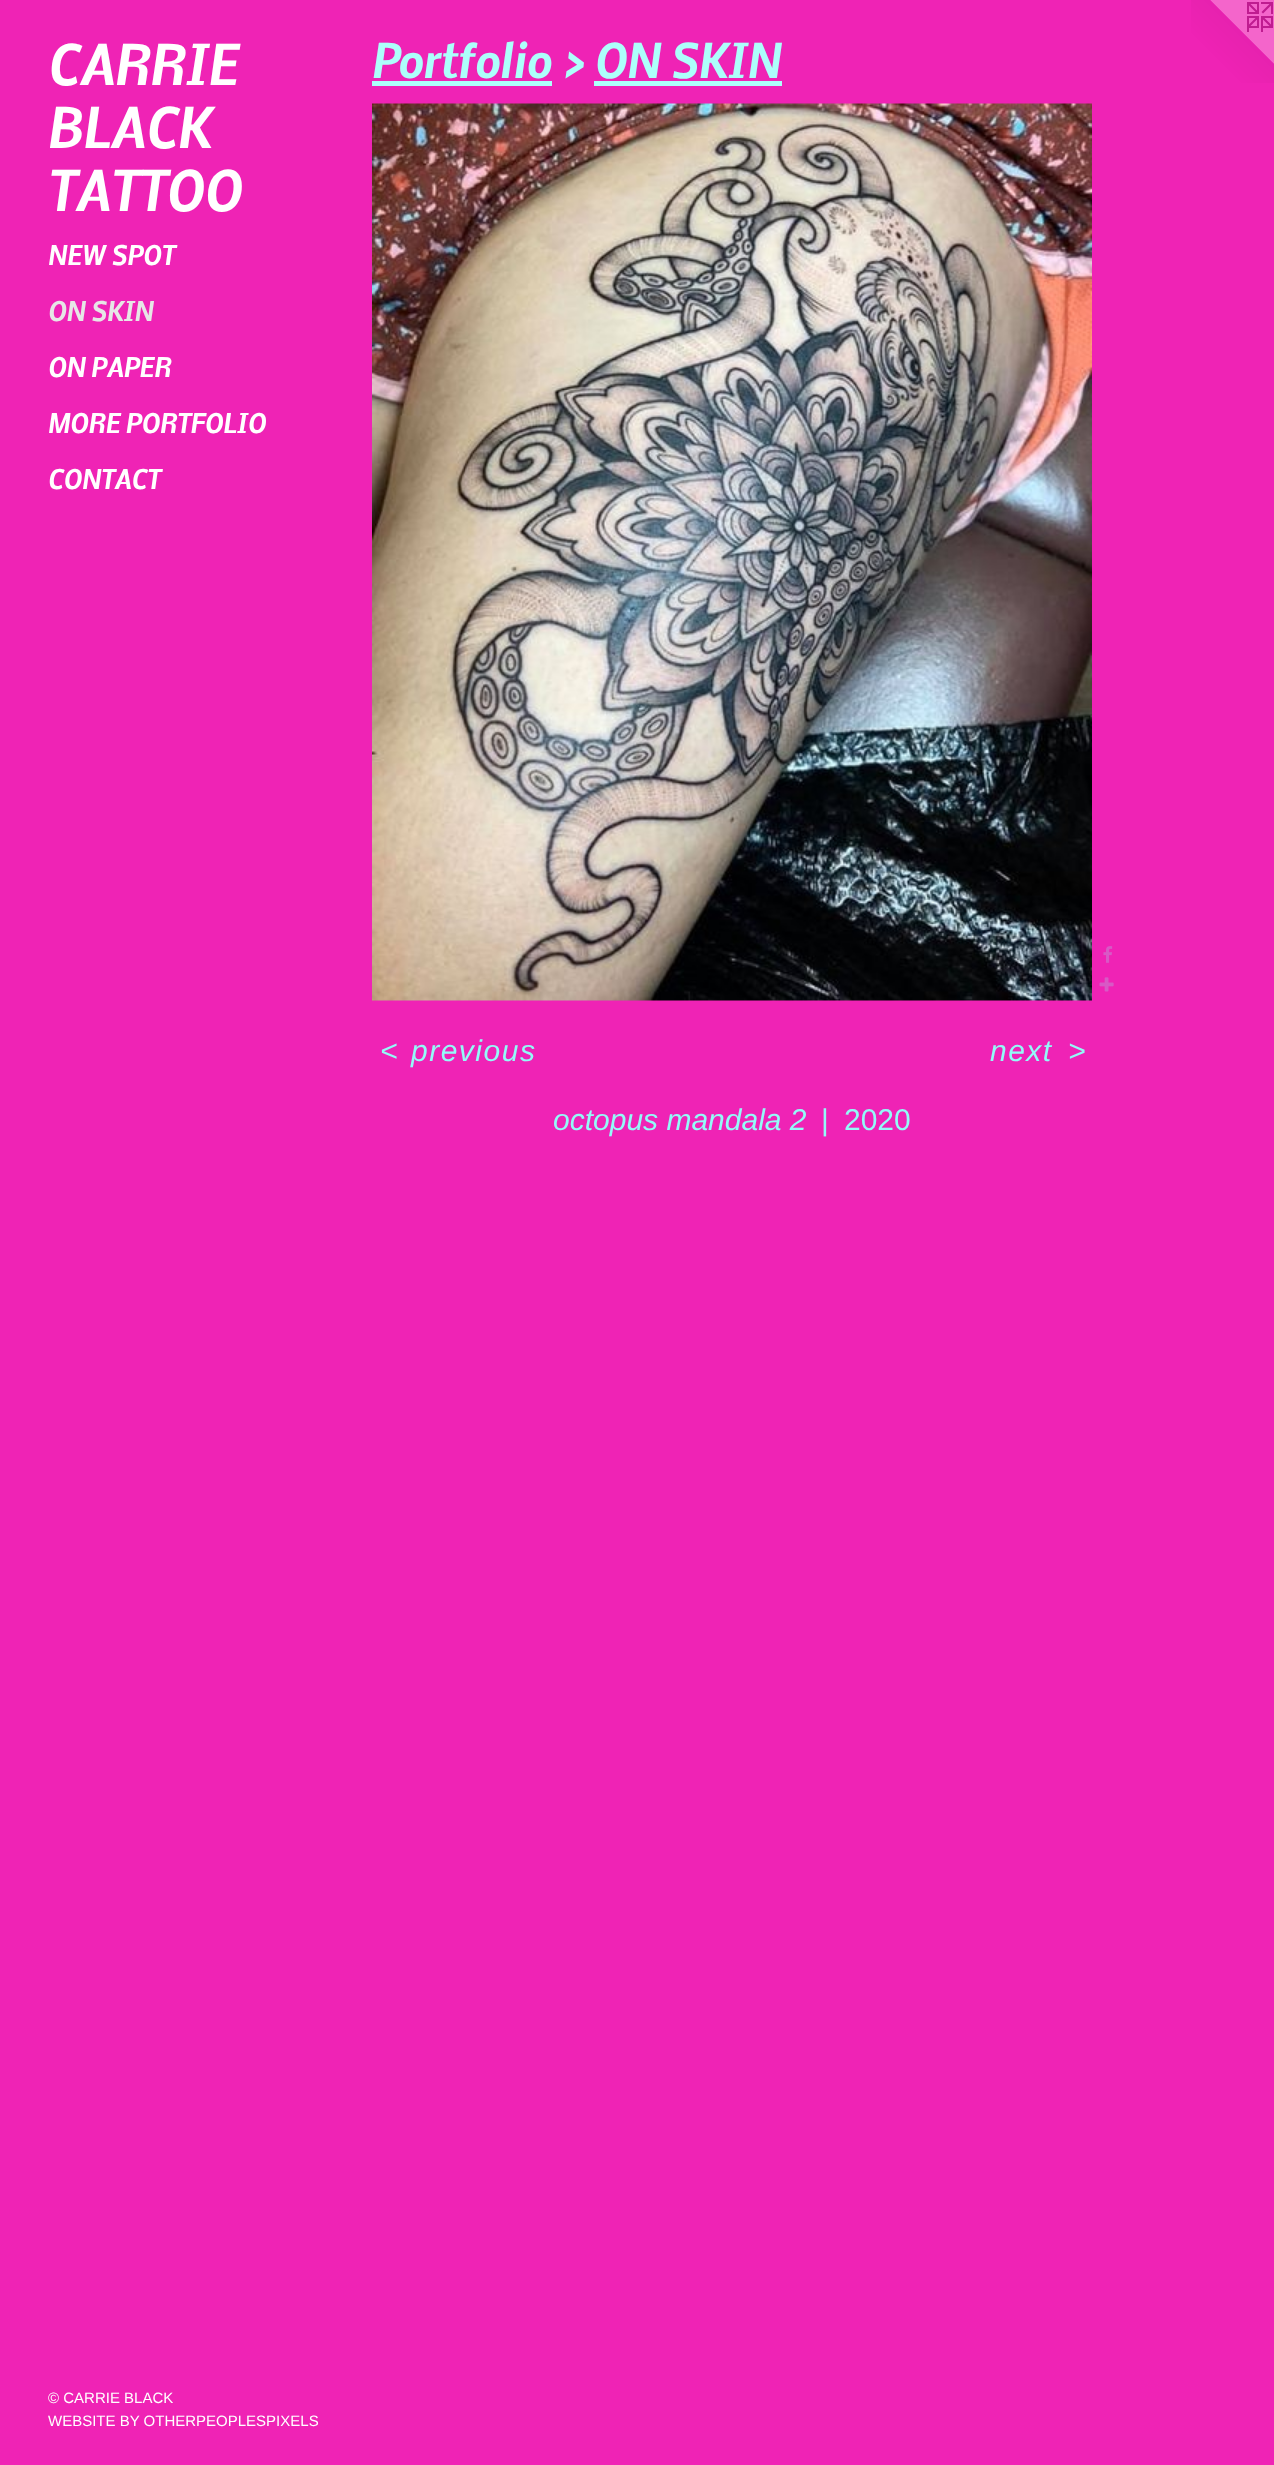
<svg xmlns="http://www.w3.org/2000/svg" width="1274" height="2465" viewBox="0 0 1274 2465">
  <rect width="100%" height="100%" fill="rgb(239,35,181)"/>
  <g font-family="Nobile" font-size="52.5" font-weight="bold" font-style="italic" fill="rgb(255,255,255)">
    <text>
      <tspan x="48" y="85">CARRIE</tspan>
      <tspan x="48" y="148">BLACK</tspan>
      <tspan x="48" y="211">TATTOO</tspan>
    </text>
  </g>
  <text x="48" y="265" font-family="Nobile" font-size="25.5" font-weight="bold" font-style="italic" fill="rgb(255,255,255)">NEW SPOT</text>
  <text x="48" y="321" font-family="Nobile" font-size="25.5" font-weight="bold" font-style="italic" fill="rgb(230,230,230)">ON SKIN</text>
  <g font-family="Nobile" font-size="25.5" font-weight="bold" font-style="italic" fill="rgb(255,255,255)">
    <text x="48" y="377">ON PAPER</text>
    <text x="48" y="433">MORE PORTFOLIO</text>
    <text x="48" y="489">CONTACT</text>
  </g>
  <g font-family="Liberation Sans" font-size="15" fill="rgb(255,255,255)">
    <text>
      <tspan x="48" y="2403">© CARRIE BLACK</tspan>
      <tspan x="48" y="2426">WEBSITE BY OTHERPEOPLESPIXELS</tspan>
    </text>
  </g>
  <text x="372" y="78" font-family="Nobile" font-size="45" font-weight="bold" font-style="italic" fill="rgb(173,255,251)">Portfolio &gt; ON SKIN</text>
  <rect x="372" y="81" width="180" height="5" fill="rgb(173,255,251)"/>
  <rect x="594" y="81" width="188" height="5" fill="rgb(173,255,251)"/>
  <image x="372" y="103" width="720" height="898" href="pic1.png"/>
  <image x="1103" y="946" width="10" height="17" href="pic2.png"/>
  <image x="1099" y="977" width="15" height="15" href="pic3.png"/>
  <g font-family="Liberation Sans" font-size="30" font-style="italic" letter-spacing="1.5" fill="rgb(147,251,248)">
    <text x="380" y="1061">&lt;</text>
    <text x="411" y="1061">previous</text>
    <text x="990" y="1061">next</text>
    <text x="1068" y="1061">&gt;</text>
  </g>
  <text x="553" y="1130" font-family="Liberation Sans" font-size="30" font-style="italic" fill="rgb(147,251,248)">octopus mandala 2</text>
  <g font-family="Liberation Sans" font-size="30" fill="rgb(147,251,248)">
    <text x="821" y="1130">|</text>
    <text x="844" y="1130">2020</text>
  </g>
  <image x="1191" y="0" width="83" height="83" href="pic4.png"/>
</svg>
